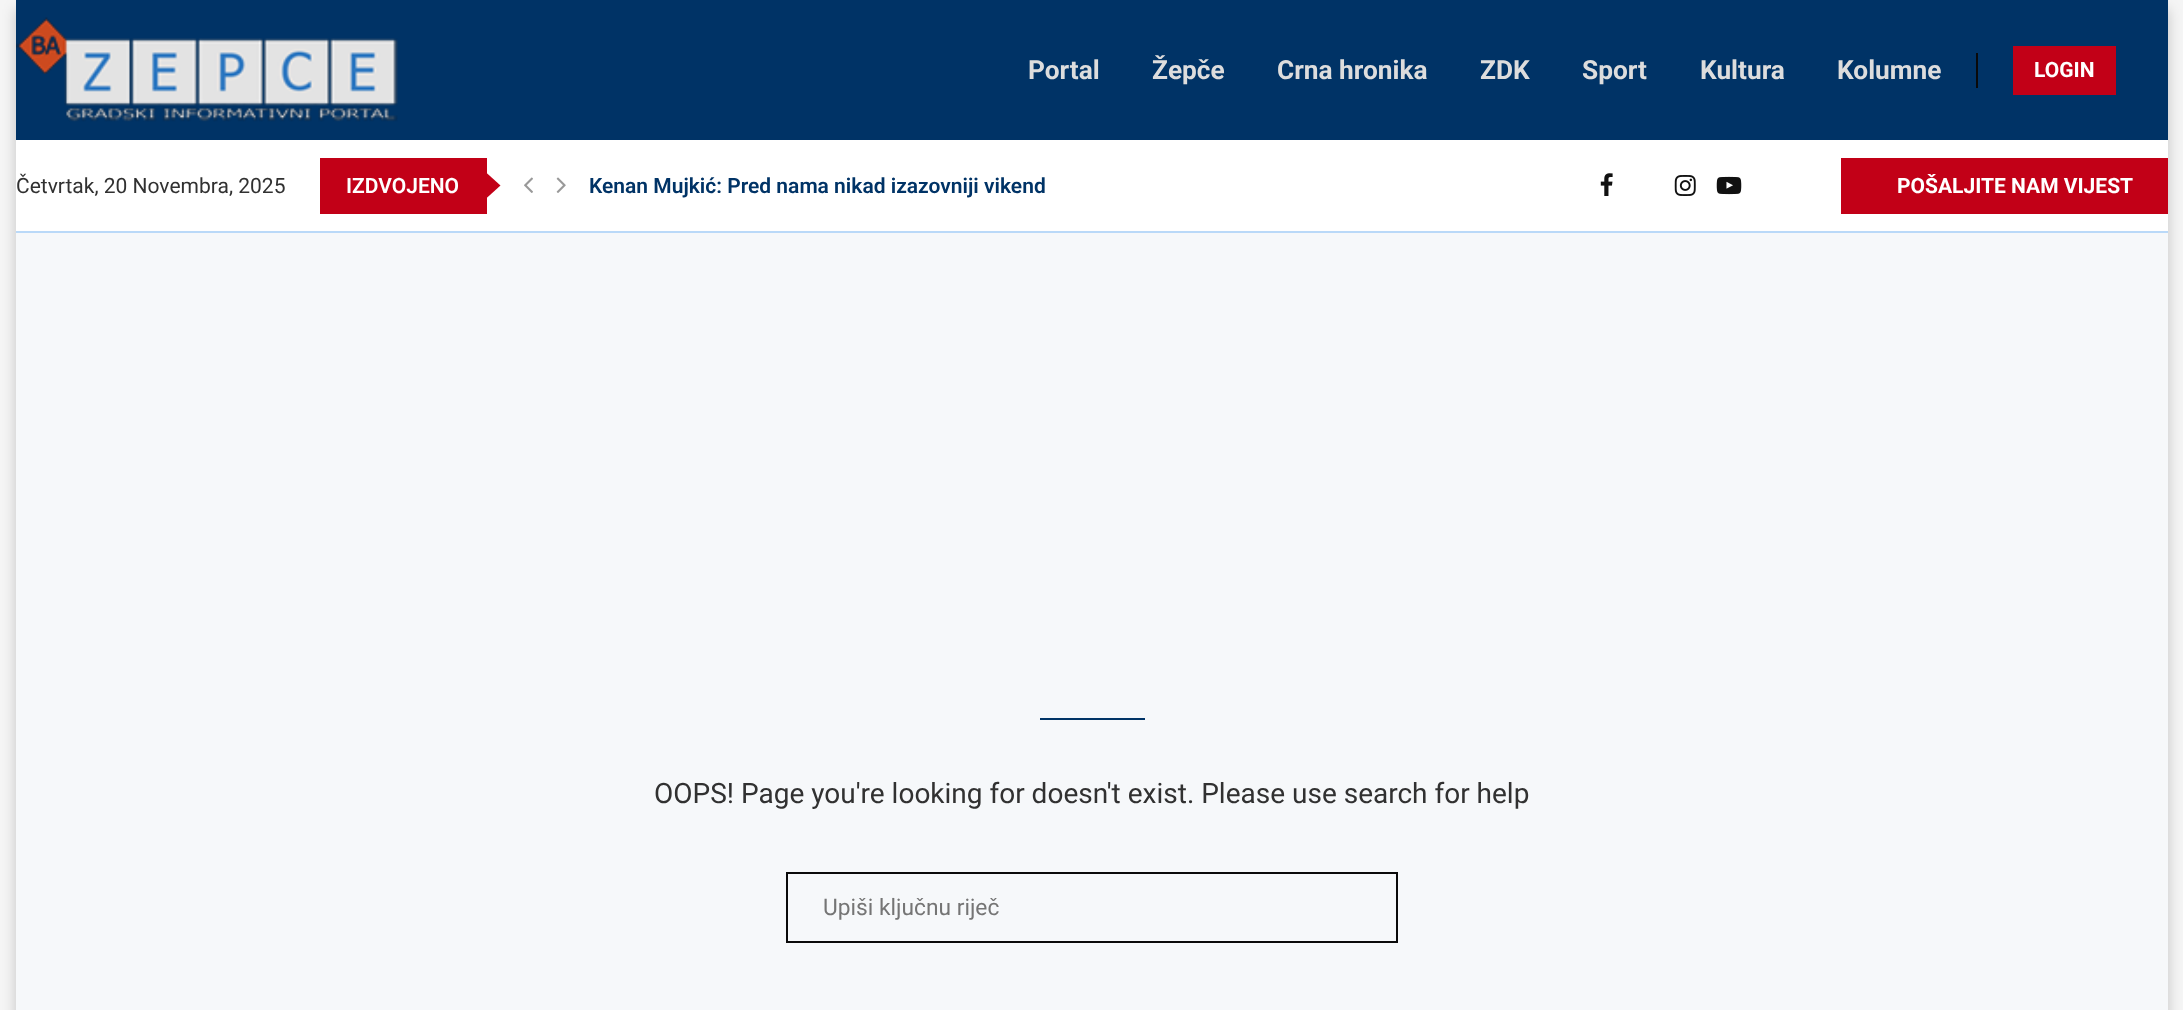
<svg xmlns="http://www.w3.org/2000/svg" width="2183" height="1010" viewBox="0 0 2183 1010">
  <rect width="100%" height="100%" fill="rgb(245,245,245)"/>
  <rect x="16" y="9" width="2152" height="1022" fill="rgba(0,0,0,0.2)" filter="blur(7px)"/>
  <rect x="16" y="233" width="2152" height="777" fill="rgb(246,248,250)"/>
  <rect x="16" y="0" width="2152" height="140" fill="rgb(0,51,102)"/>
  <image x="16" y="17" width="382" height="105" href="pic1.png"/>
  <g font-family="Roboto" font-size="26.25" font-weight="bold" fill="rgb(221,221,221)">
    <text x="1028" y="79">Portal</text>
    <text x="1152" y="79">Žepče</text>
    <text x="1277" y="79">Crna hronika</text>
    <text x="1480" y="79">ZDK</text>
    <text x="1582" y="79">Sport</text>
    <text x="1700" y="79">Kultura</text>
    <text x="1837" y="79">Kolumne</text>
  </g>
  <rect x="1976" y="53" width="2" height="35" fill="rgb(10,10,10)"/>
  <rect x="2013" y="46" width="103" height="49" fill="rgb(194,0,23)"/>
  <text x="2034" y="77" font-family="Roboto" font-size="21" font-weight="bold" fill="rgb(255,255,255)">LOGIN</text>
  <rect x="16" y="140" width="2152" height="91" fill="rgb(255,255,255)"/>
  <rect x="16" y="231" width="2152" height="2" fill="rgb(186,217,248)"/>
  <text x="16" y="193" font-family="Roboto" font-size="21" fill="rgb(49,49,49)">Četvrtak, 20 Novembra, 2025</text>
  <rect x="320" y="158" width="167" height="56" fill="rgb(194,0,23)"/>
  <text x="346" y="193" font-family="Roboto" font-size="21" font-weight="600" fill="rgb(255,255,255)">IZDVOJENO</text>
  <path d="M485 199.5V171.5L500.5 185.5Z" fill="rgb(194,0,23)"/>
  <image x="524" y="177" width="9" height="16" href="pic2.png"/>
  <image x="556" y="177" width="10" height="16" href="pic3.png"/>
  <text x="589" y="193" font-family="Roboto" font-size="21" font-weight="600" fill="rgb(0,51,102)">Kenan Mujkić: Pred nama nikad izazovniji vikend</text>
  <image x="1600" y="173" width="13" height="23" href="pic4.png"/>
  <image x="1674" y="175" width="22" height="21" href="pic5.png"/>
  <image x="1716" y="176" width="26" height="19" href="pic6.png"/>
  <rect x="1841" y="158" width="327" height="56" fill="rgb(194,0,23)"/>
  <text x="1897" y="193" font-family="Roboto" font-size="21" font-weight="bold" fill="rgb(255,255,255)">POŠALJITE NAM VIJEST</text>
  <rect x="1040" y="718" width="105" height="2" fill="rgb(0,51,102)"/>
  <text x="654" y="803" font-family="Roboto" font-size="28" fill="rgb(49,49,49)">OOPS! Page you're looking for doesn't exist. Please use search for help</text>
  <rect x="787" y="873" width="610" height="69" fill="none" stroke="rgb(10,10,10)" stroke-width="2"/>
  <text x="823" y="915" font-family="Roboto" font-size="22.75" fill="rgb(117,117,117)">Upiši ključnu riječ</text>
</svg>
